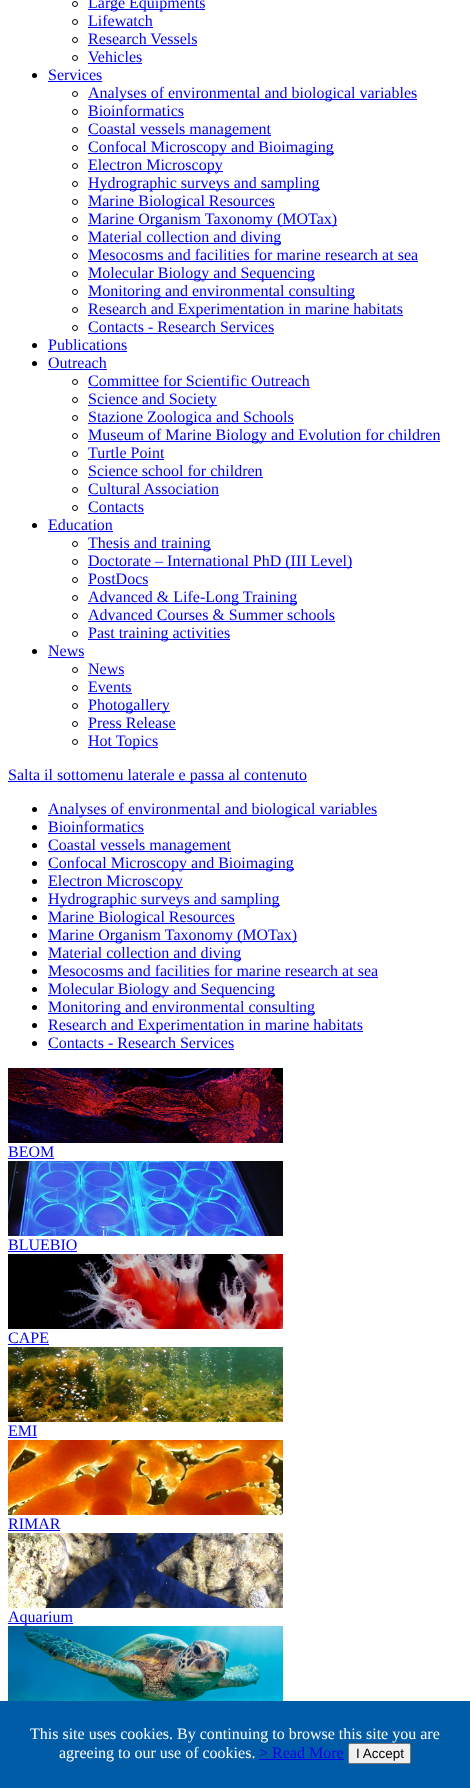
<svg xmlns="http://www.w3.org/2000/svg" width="470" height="1788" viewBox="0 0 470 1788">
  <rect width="100%" height="100%" fill="rgb(255,255,255)"/>
  <circle cx="75" cy="4" r="2.5" fill="none" stroke="rgb(0,0,0)"/>
  <rect x="88" y="9" width="117" height="1" fill="rgb(0,0,238)"/>
  <text x="88" y="8" font-family="Liberation Serif" font-size="16" fill="rgb(0,0,238)">Large Equipments</text>
  <circle cx="75" cy="22" r="2.5" fill="none" stroke="rgb(0,0,0)"/>
  <text x="88" y="26" font-family="Liberation Serif" font-size="16" fill="rgb(0,0,238)">Lifewatch</text>
  <rect x="88" y="27" width="65" height="1" fill="rgb(0,0,238)"/>
  <circle cx="75" cy="40" r="2.5" fill="none" stroke="rgb(0,0,0)"/>
  <text x="88" y="44" font-family="Liberation Serif" font-size="16" fill="rgb(0,0,238)">Research Vessels</text>
  <rect x="88" y="45" width="109" height="1" fill="rgb(0,0,238)"/>
  <circle cx="75" cy="58" r="2.5" fill="none" stroke="rgb(0,0,0)"/>
  <text x="88" y="62" font-family="Liberation Serif" font-size="16" fill="rgb(0,0,238)">Vehicles</text>
  <rect x="88" y="63" width="54" height="1" fill="rgb(0,0,238)"/>
  <circle cx="34.5" cy="75.5" r="2.5" fill="rgb(0,0,0)"/>
  <text x="48" y="80" font-family="Liberation Serif" font-size="16" fill="rgb(0,0,238)">Services</text>
  <rect x="48" y="81" width="54" height="1" fill="rgb(0,0,238)"/>
  <circle cx="75" cy="94" r="2.5" fill="none" stroke="rgb(0,0,0)"/>
  <rect x="88" y="99" width="329" height="1" fill="rgb(0,0,238)"/>
  <text x="88" y="98" font-family="Liberation Serif" font-size="16" fill="rgb(0,0,238)">Analyses of environmental and biological variables</text>
  <circle cx="75" cy="112" r="2.5" fill="none" stroke="rgb(0,0,0)"/>
  <text x="88" y="116" font-family="Liberation Serif" font-size="16" fill="rgb(0,0,238)">Bioinformatics</text>
  <rect x="88" y="117" width="96" height="1" fill="rgb(0,0,238)"/>
  <circle cx="75" cy="130" r="2.5" fill="none" stroke="rgb(0,0,0)"/>
  <rect x="88" y="135" width="183" height="1" fill="rgb(0,0,238)"/>
  <text x="88" y="134" font-family="Liberation Serif" font-size="16" fill="rgb(0,0,238)">Coastal vessels management</text>
  <circle cx="75" cy="148" r="2.5" fill="none" stroke="rgb(0,0,0)"/>
  <rect x="88" y="153" width="246" height="1" fill="rgb(0,0,238)"/>
  <text x="88" y="152" font-family="Liberation Serif" font-size="16" fill="rgb(0,0,238)">Confocal Microscopy and Bioimaging</text>
  <circle cx="75" cy="166" r="2.5" fill="none" stroke="rgb(0,0,0)"/>
  <rect x="88" y="171" width="135" height="1" fill="rgb(0,0,238)"/>
  <text x="88" y="170" font-family="Liberation Serif" font-size="16" fill="rgb(0,0,238)">Electron Microscopy</text>
  <circle cx="75" cy="184" r="2.5" fill="none" stroke="rgb(0,0,0)"/>
  <rect x="88" y="189" width="232" height="1" fill="rgb(0,0,238)"/>
  <text x="88" y="188" font-family="Liberation Serif" font-size="16" fill="rgb(0,0,238)">Hydrographic surveys and sampling</text>
  <circle cx="75" cy="202" r="2.5" fill="none" stroke="rgb(0,0,0)"/>
  <rect x="88" y="207" width="187" height="1" fill="rgb(0,0,238)"/>
  <text x="88" y="206" font-family="Liberation Serif" font-size="16" fill="rgb(0,0,238)">Marine Biological Resources</text>
  <circle cx="75" cy="220" r="2.5" fill="none" stroke="rgb(0,0,0)"/>
  <rect x="88" y="225" width="249" height="1" fill="rgb(0,0,238)"/>
  <text x="88" y="224" font-family="Liberation Serif" font-size="16" fill="rgb(0,0,238)">Marine Organism Taxonomy (MOTax)</text>
  <circle cx="75" cy="238" r="2.5" fill="none" stroke="rgb(0,0,0)"/>
  <rect x="88" y="243" width="193" height="1" fill="rgb(0,0,238)"/>
  <text x="88" y="242" font-family="Liberation Serif" font-size="16" fill="rgb(0,0,238)">Material collection and diving</text>
  <circle cx="75" cy="256" r="2.5" fill="none" stroke="rgb(0,0,0)"/>
  <text x="88" y="260" font-family="Liberation Serif" font-size="16" fill="rgb(0,0,238)">Mesocosms and facilities for marine research at sea</text>
  <rect x="88" y="261" width="330" height="1" fill="rgb(0,0,238)"/>
  <circle cx="75" cy="274" r="2.5" fill="none" stroke="rgb(0,0,0)"/>
  <rect x="88" y="279" width="227" height="1" fill="rgb(0,0,238)"/>
  <text x="88" y="278" font-family="Liberation Serif" font-size="16" fill="rgb(0,0,238)">Molecular Biology and Sequencing</text>
  <circle cx="75" cy="292" r="2.5" fill="none" stroke="rgb(0,0,0)"/>
  <rect x="88" y="297" width="267" height="1" fill="rgb(0,0,238)"/>
  <text x="88" y="296" font-family="Liberation Serif" font-size="16" fill="rgb(0,0,238)">Monitoring and environmental consulting</text>
  <circle cx="75" cy="310" r="2.5" fill="none" stroke="rgb(0,0,0)"/>
  <rect x="88" y="315" width="315" height="1" fill="rgb(0,0,238)"/>
  <text x="88" y="314" font-family="Liberation Serif" font-size="16" fill="rgb(0,0,238)">Research and Experimentation in marine habitats</text>
  <circle cx="75" cy="328" r="2.5" fill="none" stroke="rgb(0,0,0)"/>
  <text x="88" y="332" font-family="Liberation Serif" font-size="16" fill="rgb(0,0,238)">Contacts - Research Services</text>
  <rect x="88" y="333" width="186" height="1" fill="rgb(0,0,238)"/>
  <circle cx="34.5" cy="345.5" r="2.5" fill="rgb(0,0,0)"/>
  <text x="48" y="350" font-family="Liberation Serif" font-size="16" fill="rgb(0,0,238)">Publications</text>
  <rect x="48" y="351" width="79" height="1" fill="rgb(0,0,238)"/>
  <circle cx="34.5" cy="363.5" r="2.5" fill="rgb(0,0,0)"/>
  <text x="48" y="368" font-family="Liberation Serif" font-size="16" fill="rgb(0,0,238)">Outreach</text>
  <rect x="48" y="369" width="59" height="1" fill="rgb(0,0,238)"/>
  <circle cx="75" cy="382" r="2.5" fill="none" stroke="rgb(0,0,0)"/>
  <text x="88" y="386" font-family="Liberation Serif" font-size="16" fill="rgb(0,0,238)">Committee for Scientific Outreach</text>
  <rect x="88" y="387" width="222" height="1" fill="rgb(0,0,238)"/>
  <circle cx="75" cy="400" r="2.5" fill="none" stroke="rgb(0,0,0)"/>
  <rect x="88" y="405" width="129" height="1" fill="rgb(0,0,238)"/>
  <text x="88" y="404" font-family="Liberation Serif" font-size="16" fill="rgb(0,0,238)">Science and Society</text>
  <circle cx="75" cy="418" r="2.5" fill="none" stroke="rgb(0,0,0)"/>
  <rect x="88" y="423" width="206" height="1" fill="rgb(0,0,238)"/>
  <text x="88" y="422" font-family="Liberation Serif" font-size="16" fill="rgb(0,0,238)">Stazione Zoologica and Schools</text>
  <circle cx="75" cy="436" r="2.5" fill="none" stroke="rgb(0,0,0)"/>
  <rect x="88" y="441" width="352" height="1" fill="rgb(0,0,238)"/>
  <text x="88" y="440" font-family="Liberation Serif" font-size="16" fill="rgb(0,0,238)">Museum of Marine Biology and Evolution for children</text>
  <circle cx="75" cy="454" r="2.5" fill="none" stroke="rgb(0,0,0)"/>
  <text x="88" y="458" font-family="Liberation Serif" font-size="16" fill="rgb(0,0,238)">Turtle Point</text>
  <rect x="88" y="459" width="76" height="1" fill="rgb(0,0,238)"/>
  <circle cx="75" cy="472" r="2.5" fill="none" stroke="rgb(0,0,0)"/>
  <text x="88" y="476" font-family="Liberation Serif" font-size="16" fill="rgb(0,0,238)">Science school for children</text>
  <rect x="88" y="477" width="175" height="1" fill="rgb(0,0,238)"/>
  <circle cx="75" cy="490" r="2.5" fill="none" stroke="rgb(0,0,0)"/>
  <text x="88" y="494" font-family="Liberation Serif" font-size="16" fill="rgb(0,0,238)">Cultural Association</text>
  <rect x="88" y="495" width="131" height="1" fill="rgb(0,0,238)"/>
  <circle cx="75" cy="508" r="2.5" fill="none" stroke="rgb(0,0,0)"/>
  <text x="88" y="512" font-family="Liberation Serif" font-size="16" fill="rgb(0,0,238)">Contacts</text>
  <rect x="88" y="513" width="56" height="1" fill="rgb(0,0,238)"/>
  <circle cx="34.5" cy="525.5" r="2.5" fill="rgb(0,0,0)"/>
  <text x="48" y="530" font-family="Liberation Serif" font-size="16" fill="rgb(0,0,238)">Education</text>
  <rect x="48" y="531" width="65" height="1" fill="rgb(0,0,238)"/>
  <circle cx="75" cy="544" r="2.5" fill="none" stroke="rgb(0,0,0)"/>
  <rect x="88" y="549" width="123" height="1" fill="rgb(0,0,238)"/>
  <text x="88" y="548" font-family="Liberation Serif" font-size="16" fill="rgb(0,0,238)">Thesis and training</text>
  <circle cx="75" cy="562" r="2.5" fill="none" stroke="rgb(0,0,0)"/>
  <rect x="88" y="567" width="264" height="1" fill="rgb(0,0,238)"/>
  <text x="88" y="566" font-family="Liberation Serif" font-size="16" fill="rgb(0,0,238)">Doctorate – International PhD (III Level)</text>
  <circle cx="75" cy="580" r="2.5" fill="none" stroke="rgb(0,0,0)"/>
  <text x="88" y="584" font-family="Liberation Serif" font-size="16" fill="rgb(0,0,238)">PostDocs</text>
  <rect x="88" y="585" width="60" height="1" fill="rgb(0,0,238)"/>
  <circle cx="75" cy="598" r="2.5" fill="none" stroke="rgb(0,0,0)"/>
  <rect x="88" y="603" width="209" height="1" fill="rgb(0,0,238)"/>
  <text x="88" y="602" font-family="Liberation Serif" font-size="16" fill="rgb(0,0,238)">Advanced &amp; Life-Long Training</text>
  <circle cx="75" cy="616" r="2.5" fill="none" stroke="rgb(0,0,0)"/>
  <text x="88" y="620" font-family="Liberation Serif" font-size="16" fill="rgb(0,0,238)">Advanced Courses &amp; Summer schools</text>
  <rect x="88" y="621" width="247" height="1" fill="rgb(0,0,238)"/>
  <circle cx="75" cy="634" r="2.5" fill="none" stroke="rgb(0,0,0)"/>
  <rect x="88" y="639" width="142" height="1" fill="rgb(0,0,238)"/>
  <text x="88" y="638" font-family="Liberation Serif" font-size="16" fill="rgb(0,0,238)">Past training activities</text>
  <circle cx="34.5" cy="651.5" r="2.5" fill="rgb(0,0,0)"/>
  <text x="48" y="656" font-family="Liberation Serif" font-size="16" fill="rgb(0,0,238)">News</text>
  <rect x="48" y="657" width="36" height="1" fill="rgb(0,0,238)"/>
  <circle cx="75" cy="670" r="2.5" fill="none" stroke="rgb(0,0,0)"/>
  <text x="88" y="674" font-family="Liberation Serif" font-size="16" fill="rgb(0,0,238)">News</text>
  <rect x="88" y="675" width="36" height="1" fill="rgb(0,0,238)"/>
  <circle cx="75" cy="688" r="2.5" fill="none" stroke="rgb(0,0,0)"/>
  <text x="88" y="692" font-family="Liberation Serif" font-size="16" fill="rgb(0,0,238)">Events</text>
  <rect x="88" y="693" width="44" height="1" fill="rgb(0,0,238)"/>
  <circle cx="75" cy="706" r="2.5" fill="none" stroke="rgb(0,0,0)"/>
  <rect x="88" y="711" width="82" height="1" fill="rgb(0,0,238)"/>
  <text x="88" y="710" font-family="Liberation Serif" font-size="16" fill="rgb(0,0,238)">Photogallery</text>
  <circle cx="75" cy="724" r="2.5" fill="none" stroke="rgb(0,0,0)"/>
  <text x="88" y="728" font-family="Liberation Serif" font-size="16" fill="rgb(0,0,238)">Press Release</text>
  <rect x="88" y="729" width="88" height="1" fill="rgb(0,0,238)"/>
  <circle cx="75" cy="742" r="2.5" fill="none" stroke="rgb(0,0,0)"/>
  <rect x="88" y="747" width="70" height="1" fill="rgb(0,0,238)"/>
  <text x="88" y="746" font-family="Liberation Serif" font-size="16" fill="rgb(0,0,238)">Hot Topics</text>
  <rect x="8" y="781" width="299" height="1" fill="rgb(0,0,238)"/>
  <text x="8" y="780" font-family="Liberation Serif" font-size="16" fill="rgb(0,0,238)">Salta il sottomenu laterale e passa al contenuto</text>
  <circle cx="34.5" cy="809.5" r="2.5" fill="rgb(0,0,0)"/>
  <rect x="48" y="815" width="329" height="1" fill="rgb(0,0,238)"/>
  <text x="48" y="814" font-family="Liberation Serif" font-size="16" fill="rgb(0,0,238)">Analyses of environmental and biological variables</text>
  <circle cx="34.5" cy="827.5" r="2.5" fill="rgb(0,0,0)"/>
  <text x="48" y="832" font-family="Liberation Serif" font-size="16" fill="rgb(0,0,238)">Bioinformatics</text>
  <rect x="48" y="833" width="96" height="1" fill="rgb(0,0,238)"/>
  <circle cx="34.5" cy="845.5" r="2.5" fill="rgb(0,0,0)"/>
  <rect x="48" y="851" width="183" height="1" fill="rgb(0,0,238)"/>
  <text x="48" y="850" font-family="Liberation Serif" font-size="16" fill="rgb(0,0,238)">Coastal vessels management</text>
  <circle cx="34.5" cy="863.5" r="2.5" fill="rgb(0,0,0)"/>
  <rect x="48" y="869" width="246" height="1" fill="rgb(0,0,238)"/>
  <text x="48" y="868" font-family="Liberation Serif" font-size="16" fill="rgb(0,0,238)">Confocal Microscopy and Bioimaging</text>
  <circle cx="34.5" cy="881.5" r="2.5" fill="rgb(0,0,0)"/>
  <rect x="48" y="887" width="135" height="1" fill="rgb(0,0,238)"/>
  <text x="48" y="886" font-family="Liberation Serif" font-size="16" fill="rgb(0,0,238)">Electron Microscopy</text>
  <circle cx="34.5" cy="899.5" r="2.5" fill="rgb(0,0,0)"/>
  <rect x="48" y="905" width="232" height="1" fill="rgb(0,0,238)"/>
  <text x="48" y="904" font-family="Liberation Serif" font-size="16" fill="rgb(0,0,238)">Hydrographic surveys and sampling</text>
  <circle cx="34.5" cy="917.5" r="2.5" fill="rgb(0,0,0)"/>
  <rect x="48" y="923" width="187" height="1" fill="rgb(0,0,238)"/>
  <text x="48" y="922" font-family="Liberation Serif" font-size="16" fill="rgb(0,0,238)">Marine Biological Resources</text>
  <circle cx="34.5" cy="935.5" r="2.5" fill="rgb(0,0,0)"/>
  <rect x="48" y="941" width="249" height="1" fill="rgb(0,0,238)"/>
  <text x="48" y="940" font-family="Liberation Serif" font-size="16" fill="rgb(0,0,238)">Marine Organism Taxonomy (MOTax)</text>
  <circle cx="34.5" cy="953.5" r="2.5" fill="rgb(0,0,0)"/>
  <rect x="48" y="959" width="193" height="1" fill="rgb(0,0,238)"/>
  <text x="48" y="958" font-family="Liberation Serif" font-size="16" fill="rgb(0,0,238)">Material collection and diving</text>
  <circle cx="34.5" cy="971.5" r="2.5" fill="rgb(0,0,0)"/>
  <text x="48" y="976" font-family="Liberation Serif" font-size="16" fill="rgb(0,0,238)">Mesocosms and facilities for marine research at sea</text>
  <rect x="48" y="977" width="330" height="1" fill="rgb(0,0,238)"/>
  <circle cx="34.5" cy="989.5" r="2.5" fill="rgb(0,0,0)"/>
  <rect x="48" y="995" width="227" height="1" fill="rgb(0,0,238)"/>
  <text x="48" y="994" font-family="Liberation Serif" font-size="16" fill="rgb(0,0,238)">Molecular Biology and Sequencing</text>
  <circle cx="34.5" cy="1007.5" r="2.5" fill="rgb(0,0,0)"/>
  <rect x="48" y="1013" width="267" height="1" fill="rgb(0,0,238)"/>
  <text x="48" y="1012" font-family="Liberation Serif" font-size="16" fill="rgb(0,0,238)">Monitoring and environmental consulting</text>
  <circle cx="34.5" cy="1025.5" r="2.5" fill="rgb(0,0,0)"/>
  <rect x="48" y="1031" width="315" height="1" fill="rgb(0,0,238)"/>
  <text x="48" y="1030" font-family="Liberation Serif" font-size="16" fill="rgb(0,0,238)">Research and Experimentation in marine habitats</text>
  <circle cx="34.5" cy="1043.5" r="2.5" fill="rgb(0,0,0)"/>
  <text x="48" y="1048" font-family="Liberation Serif" font-size="16" fill="rgb(0,0,238)">Contacts - Research Services</text>
  <rect x="48" y="1049" width="186" height="1" fill="rgb(0,0,238)"/>
  <image x="8" y="1068" width="275" height="75" href="pic1.png"/>
  <text x="8" y="1157" font-family="Liberation Serif" font-size="16" fill="rgb(0,0,238)">BEOM</text>
  <rect x="8" y="1158" width="46" height="1" fill="rgb(0,0,238)"/>
  <image x="8" y="1161" width="275" height="75" href="pic2.png"/>
  <text x="8" y="1250" font-family="Liberation Serif" font-size="16" fill="rgb(0,0,238)">BLUEBIO</text>
  <rect x="8" y="1251" width="69" height="1" fill="rgb(0,0,238)"/>
  <image x="8" y="1254" width="275" height="75" href="pic3.png"/>
  <text x="8" y="1343" font-family="Liberation Serif" font-size="16" fill="rgb(0,0,238)">CAPE</text>
  <rect x="8" y="1344" width="41" height="1" fill="rgb(0,0,238)"/>
  <image x="8" y="1347" width="275" height="75" href="pic4.png"/>
  <text x="8" y="1436" font-family="Liberation Serif" font-size="16" fill="rgb(0,0,238)">EMI</text>
  <rect x="8" y="1437" width="29" height="1" fill="rgb(0,0,238)"/>
  <image x="8" y="1440" width="275" height="75" href="pic5.png"/>
  <text x="8" y="1529" font-family="Liberation Serif" font-size="16" fill="rgb(0,0,238)">RIMAR</text>
  <rect x="8" y="1530" width="52" height="1" fill="rgb(0,0,238)"/>
  <image x="8" y="1533" width="275" height="75" href="pic6.png"/>
  <rect x="8" y="1623" width="65" height="1" fill="rgb(0,0,238)"/>
  <text x="8" y="1622" font-family="Liberation Serif" font-size="16" fill="rgb(0,0,238)">Aquarium</text>
  <image x="8" y="1626" width="275" height="75" href="pic7.png"/>
  <rect x="0" y="1701" width="470" height="87" fill="rgb(0,92,166)"/>
  <g font-family="Liberation Serif" font-size="16" fill="rgb(255,255,255)">
    <text x="30" y="1739">This site uses cookies. By continuing to browse this site you are</text>
    <text x="59" y="1758">agreeing to our use of cookies.</text>
  </g>
  <text x="259" y="1758" font-family="Liberation Serif" font-size="16" fill="rgb(0,0,238)">&gt; Read More</text>
  <rect x="259" y="1759" width="85" height="1" fill="rgb(0,0,238)"/>
  <rect x="348.5" y="1743.5" width="62" height="20" rx="1.5" fill="rgb(239,239,239)" stroke="rgb(118,118,118)"/>
  <text x="356" y="1758" font-family="Liberation Sans" font-size="13.5" fill="rgb(0,0,0)">I Accept</text>
</svg>
